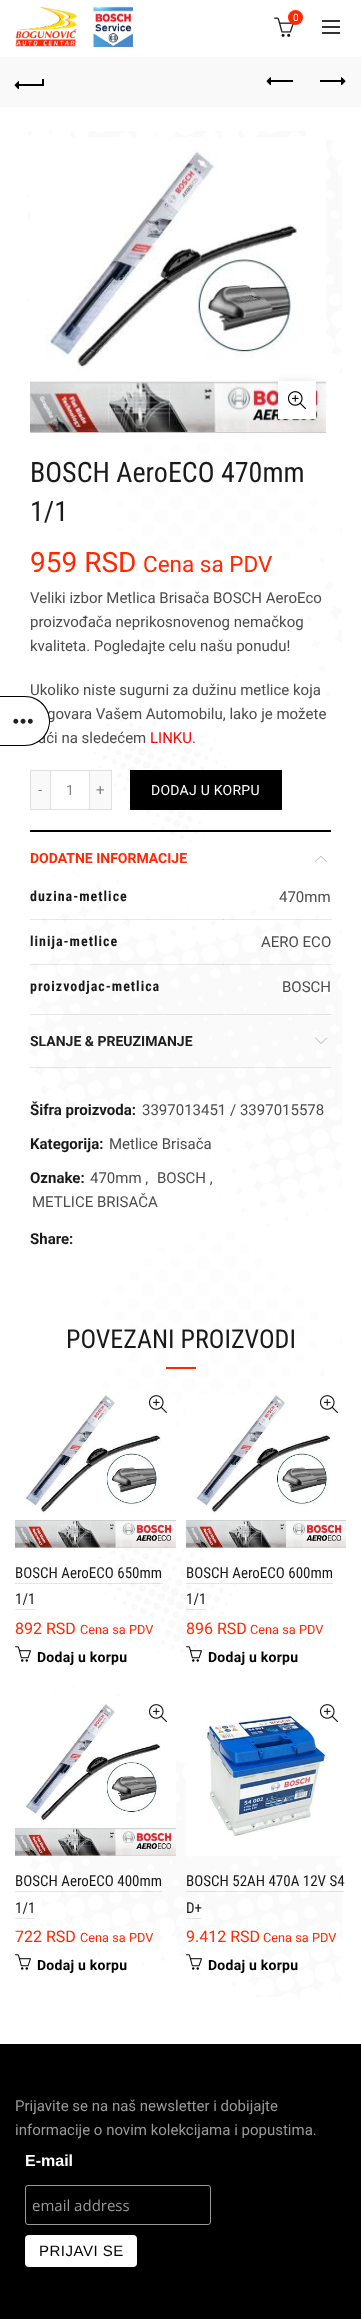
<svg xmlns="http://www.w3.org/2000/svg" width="361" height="2319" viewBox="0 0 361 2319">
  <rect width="100%" height="100%" fill="rgb(255,255,255)"/>
  <rect x="186" y="1918" width="16" height="1" fill="rgb(230,230,230)"/>
  <rect x="186" y="1891" width="158" height="1" fill="rgb(230,230,230)"/>
  <rect x="15" y="1891" width="147" height="1" fill="rgb(230,230,230)"/>
  <rect x="30" y="1067" width="301" height="1" fill="rgb(232,232,232)"/>
  <rect x="30" y="919" width="302" height="1" fill="rgb(232,232,232)"/>
  <rect x="223" y="919" width="1" height="1" fill="rgb(213,213,213)"/>
  <rect x="30" y="964" width="302" height="1" fill="rgb(232,232,232)"/>
  <rect x="223" y="964" width="1" height="1" fill="rgb(213,213,213)"/>
  <rect x="30" y="1014" width="301" height="1" fill="rgb(232,232,232)"/>
  <image x="15" y="6" width="118" height="42" href="pic1.png"/>
  <image x="274" y="17" width="20" height="20" href="pic2.png"/>
  <circle cx="295.5" cy="17.5" r="7.5" fill="rgb(255,40,0)"/>
  <text x="293" y="21" font-family="Roboto" font-size="10" fill="rgb(255,255,255)">0</text>
  <rect x="322" y="26" width="18" height="2" fill="rgb(51,51,51)"/>
  <rect x="322" y="20" width="18" height="2" fill="rgb(51,51,51)"/>
  <rect x="322" y="32" width="18" height="2" fill="rgb(51,51,51)"/>
  <image x="28" y="131" width="314" height="1866" href="pic3.png"/>
  <rect x="0" y="57" width="361" height="50" fill="rgb(249,249,249)"/>
  <rect x="18" y="84" width="25" height="2" fill="rgb(0,0,0)"/>
  <image x="14" y="81" width="5" height="9" href="pic4.png"/>
  <rect x="42" y="79" width="2" height="7" fill="rgb(0,0,0)"/>
  <rect x="270" y="80" width="23" height="2" fill="rgb(0,0,0)"/>
  <image x="266" y="77" width="5" height="9" href="pic4.png"/>
  <rect x="320" y="80" width="23" height="2" fill="rgb(0,0,0)"/>
  <image x="341" y="77" width="5" height="9" href="pic5.png"/>
  <image x="30" y="137" width="296" height="296" href="pic6.png"/>
  <rect x="278" y="381" width="38" height="38" fill="rgba(0,0,0,0.1)" filter="blur(4.5px)"/>
  <rect x="278" y="381" width="38" height="38" fill="rgb(255,255,255)"/>
  <image x="287" y="391" width="19" height="19" href="pic7.png"/>
  <g font-family="Roboto Condensed" font-size="28" fill="rgb(27,25,25)">
    <text>
      <tspan x="30" y="482">BOSCH AeroECO 470mm</tspan>
      <tspan x="30" y="521">1/1</tspan>
    </text>
  </g>
  <text x="30" y="572" font-family="Roboto" font-size="28" fill="rgb(255,40,0)">959 RSD</text>
  <text x="143" y="572" font-family="Roboto" font-size="22.5" fill="rgb(255,40,0)">Cena sa PDV</text>
  <g font-family="Roboto" font-size="15" fill="rgb(76,76,76)">
    <text>
      <tspan x="30" y="603">Veliki izbor Metlica Brisača BOSCH AeroEco</tspan>
      <tspan x="30" y="627">proizvođača neprikosnovenog nemačkog</tspan>
      <tspan x="30" y="651">kvaliteta. Pogledajte celu našu ponudu!</tspan>
    </text>
    <text x="30" y="695">Ukoliko niste sugurni za dužinu metlice koja</text>
    <text x="47" y="719">govara Vašem Automobilu, lako je možete</text>
    <text x="38" y="743">aći na sledećem</text>
  </g>
  <text x="150" y="743" font-family="Roboto" font-size="15" fill="rgb(255,0,0)">LINKU.</text>
  <rect x="31" y="771" width="19" height="38" fill="rgb(249,249,249)"/>
  <rect x="30" y="770" width="20" height="1" fill="rgb(224,224,224)"/>
  <rect x="30" y="809" width="20" height="1" fill="rgb(224,224,224)"/>
  <rect x="30" y="770" width="1" height="40" fill="rgb(224,224,224)"/>
  <text x="38" y="795" font-family="Roboto" font-size="15" fill="rgb(132,132,132)">-</text>
  <rect x="50.5" y="770.5" width="39" height="39" fill="none" stroke="rgb(224,224,224)"/>
  <text x="66" y="795" font-family="Roboto" font-size="14" fill="rgb(132,132,132)">1</text>
  <rect x="90" y="771" width="21" height="38" fill="rgb(249,249,249)"/>
  <rect x="90" y="770" width="22" height="1" fill="rgb(224,224,224)"/>
  <rect x="111" y="770" width="1" height="40" fill="rgb(224,224,224)"/>
  <rect x="90" y="809" width="22" height="1" fill="rgb(224,224,224)"/>
  <text x="96" y="795" font-family="Roboto" font-size="15" fill="rgb(132,132,132)">+</text>
  <rect x="130" y="770" width="152" height="40" fill="rgb(0,0,0)"/>
  <text x="151" y="795" font-family="Roboto" font-size="14" letter-spacing="0.25" fill="rgb(255,255,255)">DODAJ U KORPU</text>
  <rect x="30" y="830" width="301" height="2" fill="rgb(0,0,0)"/>
  <text x="30" y="863" font-family="Roboto" font-size="14" font-weight="bold" fill="rgb(255,40,0)">DODATNE INFORMACIJE</text>
  <image x="315" y="855" width="12" height="7" href="pic8.png"/>
  <text x="30" y="901" font-family="Roboto Condensed" font-size="14" font-weight="bold" letter-spacing="1" fill="rgb(27,25,25)">duzina-metlice</text>
  <text x="279" y="902" font-family="Roboto" font-size="15" fill="rgb(76,76,76)">470mm</text>
  <text x="30" y="946" font-family="Roboto Condensed" font-size="14" font-weight="bold" letter-spacing="1" fill="rgb(27,25,25)">linija-metlice</text>
  <text x="261" y="947" font-family="Roboto" font-size="15" fill="rgb(76,76,76)">AERO ECO</text>
  <text x="30" y="991" font-family="Roboto Condensed" font-size="14" font-weight="bold" letter-spacing="1" fill="rgb(27,25,25)">proizvodjac-metlica</text>
  <text x="282" y="992" font-family="Roboto" font-size="15" fill="rgb(76,76,76)">BOSCH</text>
  <text x="30" y="1046" font-family="Roboto" font-size="14" font-weight="bold" fill="rgb(32,32,32)">SLANJE &amp; PREUZIMANJE</text>
  <image x="315" y="1037" width="12" height="7" href="pic9.png"/>
  <text x="30" y="1115" font-family="Roboto" font-size="15" font-weight="bold" fill="rgb(27,25,25)">Šifra proizvoda:</text>
  <text x="142" y="1115" font-family="Roboto" font-size="15" fill="rgb(76,76,76)">3397013451 / 3397015578</text>
  <text x="30" y="1149" font-family="Roboto" font-size="15" font-weight="bold" fill="rgb(27,25,25)">Kategorija:</text>
  <text x="109" y="1149" font-family="Roboto" font-size="15" fill="rgb(76,76,76)">Metlice Brisača</text>
  <text x="30" y="1183" font-family="Roboto" font-size="15" font-weight="bold" fill="rgb(27,25,25)">Oznake:</text>
  <g font-family="Roboto" font-size="15" fill="rgb(76,76,76)">
    <text x="90" y="1183">470mm ,</text>
    <text x="157" y="1183">BOSCH ,</text>
    <text x="32" y="1207">METLICE BRISAČA</text>
  </g>
  <text x="30" y="1244" font-family="Roboto" font-size="15" font-weight="bold" fill="rgb(27,25,25)">Share:</text>
  <text x="66" y="1348" font-family="Roboto Condensed" font-size="26" fill="rgb(27,25,25)">POVEZANI PROIZVODI</text>
  <rect x="166" y="1367" width="30" height="2" fill="rgb(255,40,0)"/>
  <image x="15" y="1395" width="161" height="153" href="pic10.png"/>
  <image x="148" y="1395" width="19" height="19" href="pic11.png"/>
  <text x="15" y="1578" font-family="Roboto Condensed" font-size="15" fill="rgb(27,25,25)">BOSCH AeroECO 650mm</text>
  <rect x="15" y="1583" width="147" height="1" fill="rgba(0,0,0,0.1)"/>
  <text x="15" y="1604" font-family="Roboto Condensed" font-size="15" fill="rgb(27,25,25)">1/1</text>
  <rect x="15" y="1609" width="20" height="1" fill="rgb(230,230,230)"/>
  <text x="15" y="1634" font-family="Roboto" font-size="16" fill="rgb(255,40,0)">892 RSD</text>
  <text x="80" y="1634" font-family="Roboto" font-size="12.75" fill="rgb(255,40,0)">Cena sa PDV</text>
  <image x="15" y="1646" width="16" height="16" href="pic12.png"/>
  <text x="37" y="1662" font-family="Roboto" font-size="14" font-weight="bold" letter-spacing="0.25" fill="rgb(0,0,0)">Dodaj u korpu</text>
  <image x="186" y="1395" width="160" height="153" href="pic13.png"/>
  <image x="319" y="1395" width="19" height="19" href="pic11.png"/>
  <text x="186" y="1578" font-family="Roboto Condensed" font-size="15" fill="rgb(27,25,25)">BOSCH AeroECO 600mm</text>
  <rect x="186" y="1583" width="147" height="1" fill="rgba(0,0,0,0.1)"/>
  <text x="186" y="1604" font-family="Roboto Condensed" font-size="15" fill="rgb(27,25,25)">1/1</text>
  <rect x="186" y="1609" width="20" height="1" fill="rgba(0,0,0,0.1)"/>
  <text x="186" y="1634" font-family="Roboto" font-size="16" fill="rgb(255,40,0)">896 RSD</text>
  <text x="250" y="1634" font-family="Roboto" font-size="12.75" fill="rgb(255,40,0)">Cena sa PDV</text>
  <image x="186" y="1646" width="16" height="16" href="pic14.png"/>
  <text x="208" y="1662" font-family="Roboto" font-size="14" font-weight="bold" letter-spacing="0.25" fill="rgb(0,0,0)">Dodaj u korpu</text>
  <image x="15" y="1699" width="161" height="157" href="pic15.png"/>
  <image x="148" y="1704" width="19" height="19" href="pic11.png"/>
  <g font-family="Roboto Condensed" font-size="15" fill="rgb(27,25,25)">
    <text>
      <tspan x="15" y="1886">BOSCH AeroECO 400mm</tspan>
      <tspan x="15" y="1913">1/1</tspan>
    </text>
  </g>
  <rect x="15" y="1918" width="20" height="1" fill="rgb(230,230,230)"/>
  <text x="15" y="1942" font-family="Roboto" font-size="16" fill="rgb(255,40,0)">722 RSD</text>
  <text x="80" y="1942" font-family="Roboto" font-size="12.75" fill="rgb(255,40,0)">Cena sa PDV</text>
  <image x="15" y="1954" width="16" height="16" href="pic12.png"/>
  <text x="37" y="1970" font-family="Roboto" font-size="14" font-weight="bold" letter-spacing="0.25" fill="rgb(0,0,0)">Dodaj u korpu</text>
  <image x="186" y="1713" width="160" height="143" href="pic16.png"/>
  <image x="319" y="1704" width="19" height="19" href="pic11.png"/>
  <g font-family="Roboto Condensed" font-size="15" fill="rgb(27,25,25)">
    <text>
      <tspan x="186" y="1886">BOSCH 52AH 470A 12V S4</tspan>
      <tspan x="186" y="1913">D+</tspan>
    </text>
  </g>
  <text x="186" y="1942" font-family="Roboto" font-size="16" fill="rgb(255,40,0)">9.412 RSD</text>
  <text x="263" y="1942" font-family="Roboto" font-size="12.75" fill="rgb(255,40,0)">Cena sa PDV</text>
  <image x="186" y="1954" width="16" height="16" href="pic12.png"/>
  <text x="208" y="1970" font-family="Roboto" font-size="14" font-weight="bold" letter-spacing="0.25" fill="rgb(0,0,0)">Dodaj u korpu</text>
  <rect x="0" y="2044" width="361" height="275" fill="rgb(0,0,0)"/>
  <g font-family="Roboto" font-size="15" fill="rgb(153,153,153)">
    <text>
      <tspan x="15" y="2111">Prijavite se na naš newsletter i dobijajte</tspan>
      <tspan x="15" y="2135">informacije o novim kolekcijama i popustima.</tspan>
    </text>
  </g>
  <text x="25" y="2166" font-family="Liberation Sans" font-size="16" font-weight="bold" fill="rgb(255,255,255)">E-mail</text>
  <rect x="25.5" y="2185.5" width="185" height="39" rx="2.5" fill="none" stroke="rgb(153,153,153)"/>
  <text x="32" y="2211" font-family="Open Sans" font-size="15" fill="rgb(153,153,153)">email address</text>
  <rect x="25" y="2235" width="112" height="32" rx="4" fill="rgb(255,255,255)"/>
  <text x="39" y="2256" font-family="Liberation Sans" font-size="15" letter-spacing="0.5" fill="rgb(0,0,0)">PRIJAVI SE</text>
  <path d="M0 697H25C38.5 697 49 707.5 49 721C49 734.5 38.5 745 25 745H0Z" fill="rgb(255,255,255)"/>
  <path d="M0 696H25C39 696 50 707 50 721C50 735 39 746 25 746H0ZM0 697H25C38 697 49 708 49 721C49 734 38 745 25 745H0Z" fill="rgb(0,0,0)" fill-rule="evenodd"/>
  <image x="13" y="718" width="20" height="6" href="pic17.png"/>
</svg>
